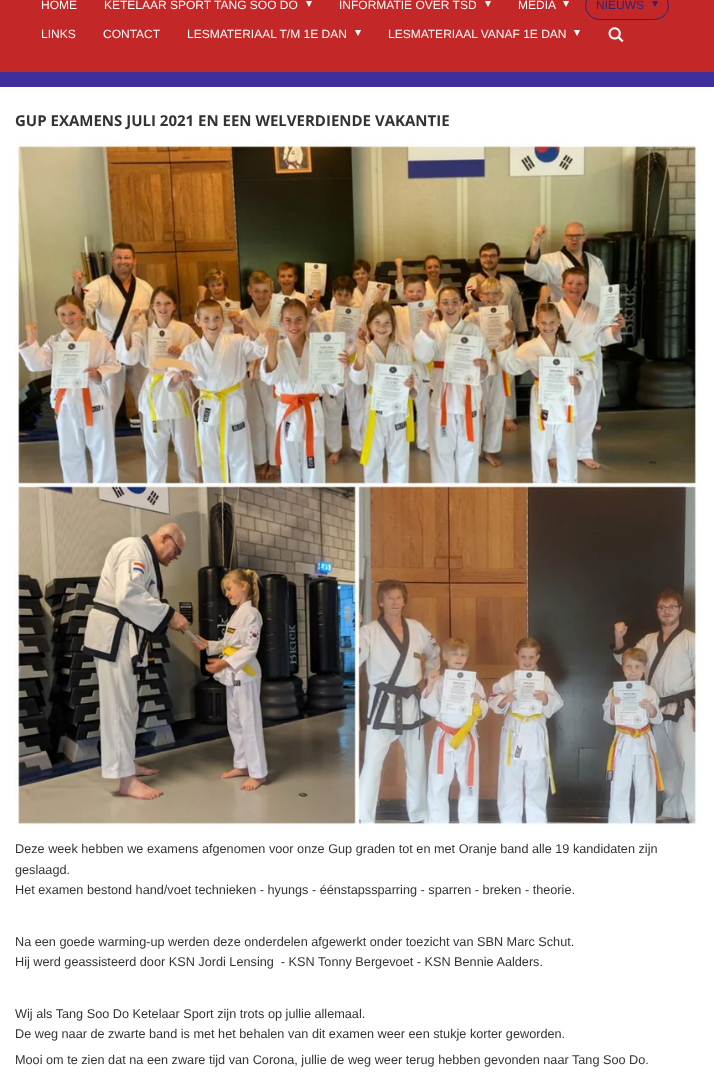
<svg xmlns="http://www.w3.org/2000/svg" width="714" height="1080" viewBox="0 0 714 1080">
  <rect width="100%" height="100%" fill="rgb(255,255,255)"/>
  <rect x="0" y="0" width="714" height="72" fill="rgb(196,39,39)"/>
  <g font-family="Liberation Sans" font-size="12" fill="rgb(255,255,255)">
    <text x="41" y="9">HOME</text>
    <text x="104" y="9">KETELAAR SPORT TANG SOO DO</text>
  </g>
  <text x="306" y="7" font-family="DejaVu Sans" font-size="12" fill="rgb(255,255,255)">▾</text>
  <text x="339" y="9" font-family="Liberation Sans" font-size="12" fill="rgb(255,255,255)">INFORMATIE OVER TSD</text>
  <text x="485" y="7" font-family="DejaVu Sans" font-size="12" fill="rgb(255,255,255)">▾</text>
  <text x="518" y="9" font-family="Liberation Sans" font-size="12" fill="rgb(255,255,255)">MEDIA</text>
  <text x="563" y="7" font-family="DejaVu Sans" font-size="12" fill="rgb(255,255,255)">▾</text>
  <rect x="585.5" y="-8.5" width="83" height="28" rx="14" fill="none" stroke="rgb(47,35,118)"/>
  <text x="596" y="9" font-family="Liberation Sans" font-size="12" fill="rgb(47,35,118)">NIEUWS</text>
  <text x="652" y="7" font-family="DejaVu Sans" font-size="12" fill="rgb(47,35,118)">▾</text>
  <g font-family="Liberation Sans" font-size="12" fill="rgb(255,255,255)">
    <text x="41" y="38">LINKS</text>
    <text x="103" y="38">CONTACT</text>
    <text x="187" y="38">LESMATERIAAL T/M 1E DAN</text>
  </g>
  <text x="355" y="36" font-family="DejaVu Sans" font-size="12" fill="rgb(255,255,255)">▾</text>
  <text x="388" y="38" font-family="Liberation Sans" font-size="12" fill="rgb(255,255,255)">LESMATERIAAL VANAF 1E DAN</text>
  <text x="574" y="36" font-family="DejaVu Sans" font-size="12" fill="rgb(255,255,255)">▾</text>
  <image x="608" y="27" width="16" height="16" href="pic1.png"/>
  <rect x="0" y="72" width="714" height="15" fill="rgb(62,47,157)"/>
  <text x="15" y="126" font-family="Open Sans" font-size="15" font-weight="bold" fill="rgb(51,51,51)">GUP EXAMENS JULI 2021 EN EEN WELVERDIENDE VAKANTIE</text>
  <image x="15" y="143" width="684" height="684" href="pic2.png"/>
  <g font-family="Liberation Sans" font-size="12.7" fill="rgb(51,51,51)">
    <text>
      <tspan x="15" y="853">Deze week hebben we examens afgenomen voor onze Gup graden tot en met Oranje band alle 19 kandidaten zijn</tspan>
      <tspan x="15" y="874">geslaagd.</tspan>
      <tspan x="15" y="894">Het examen bestond hand/voet technieken - hyungs - éénstapssparring - sparren - breken - theorie.</tspan>
    </text>
    <text xml:space="preserve"><tspan x="15" y="946">Na een goede warming-up werden deze onderdelen afgewerkt onder toezicht van SBN Marc Schut.</tspan><tspan x="15" y="966">Hij werd geassisteerd door KSN Jordi Lensing  - KSN Tonny Bergevoet - KSN Bennie Aalders.</tspan></text>
    <text>
      <tspan x="15" y="1018">Wij als Tang Soo Do Ketelaar Sport zijn trots op jullie allemaal.</tspan>
      <tspan x="15" y="1038">De weg naar de zwarte band is met het behalen van dit examen weer een stukje korter geworden.</tspan>
    </text>
    <text x="15" y="1064">Mooi om te zien dat na een zware tijd van Corona, jullie de weg weer terug hebben gevonden naar Tang Soo Do.</text>
  </g>
</svg>
